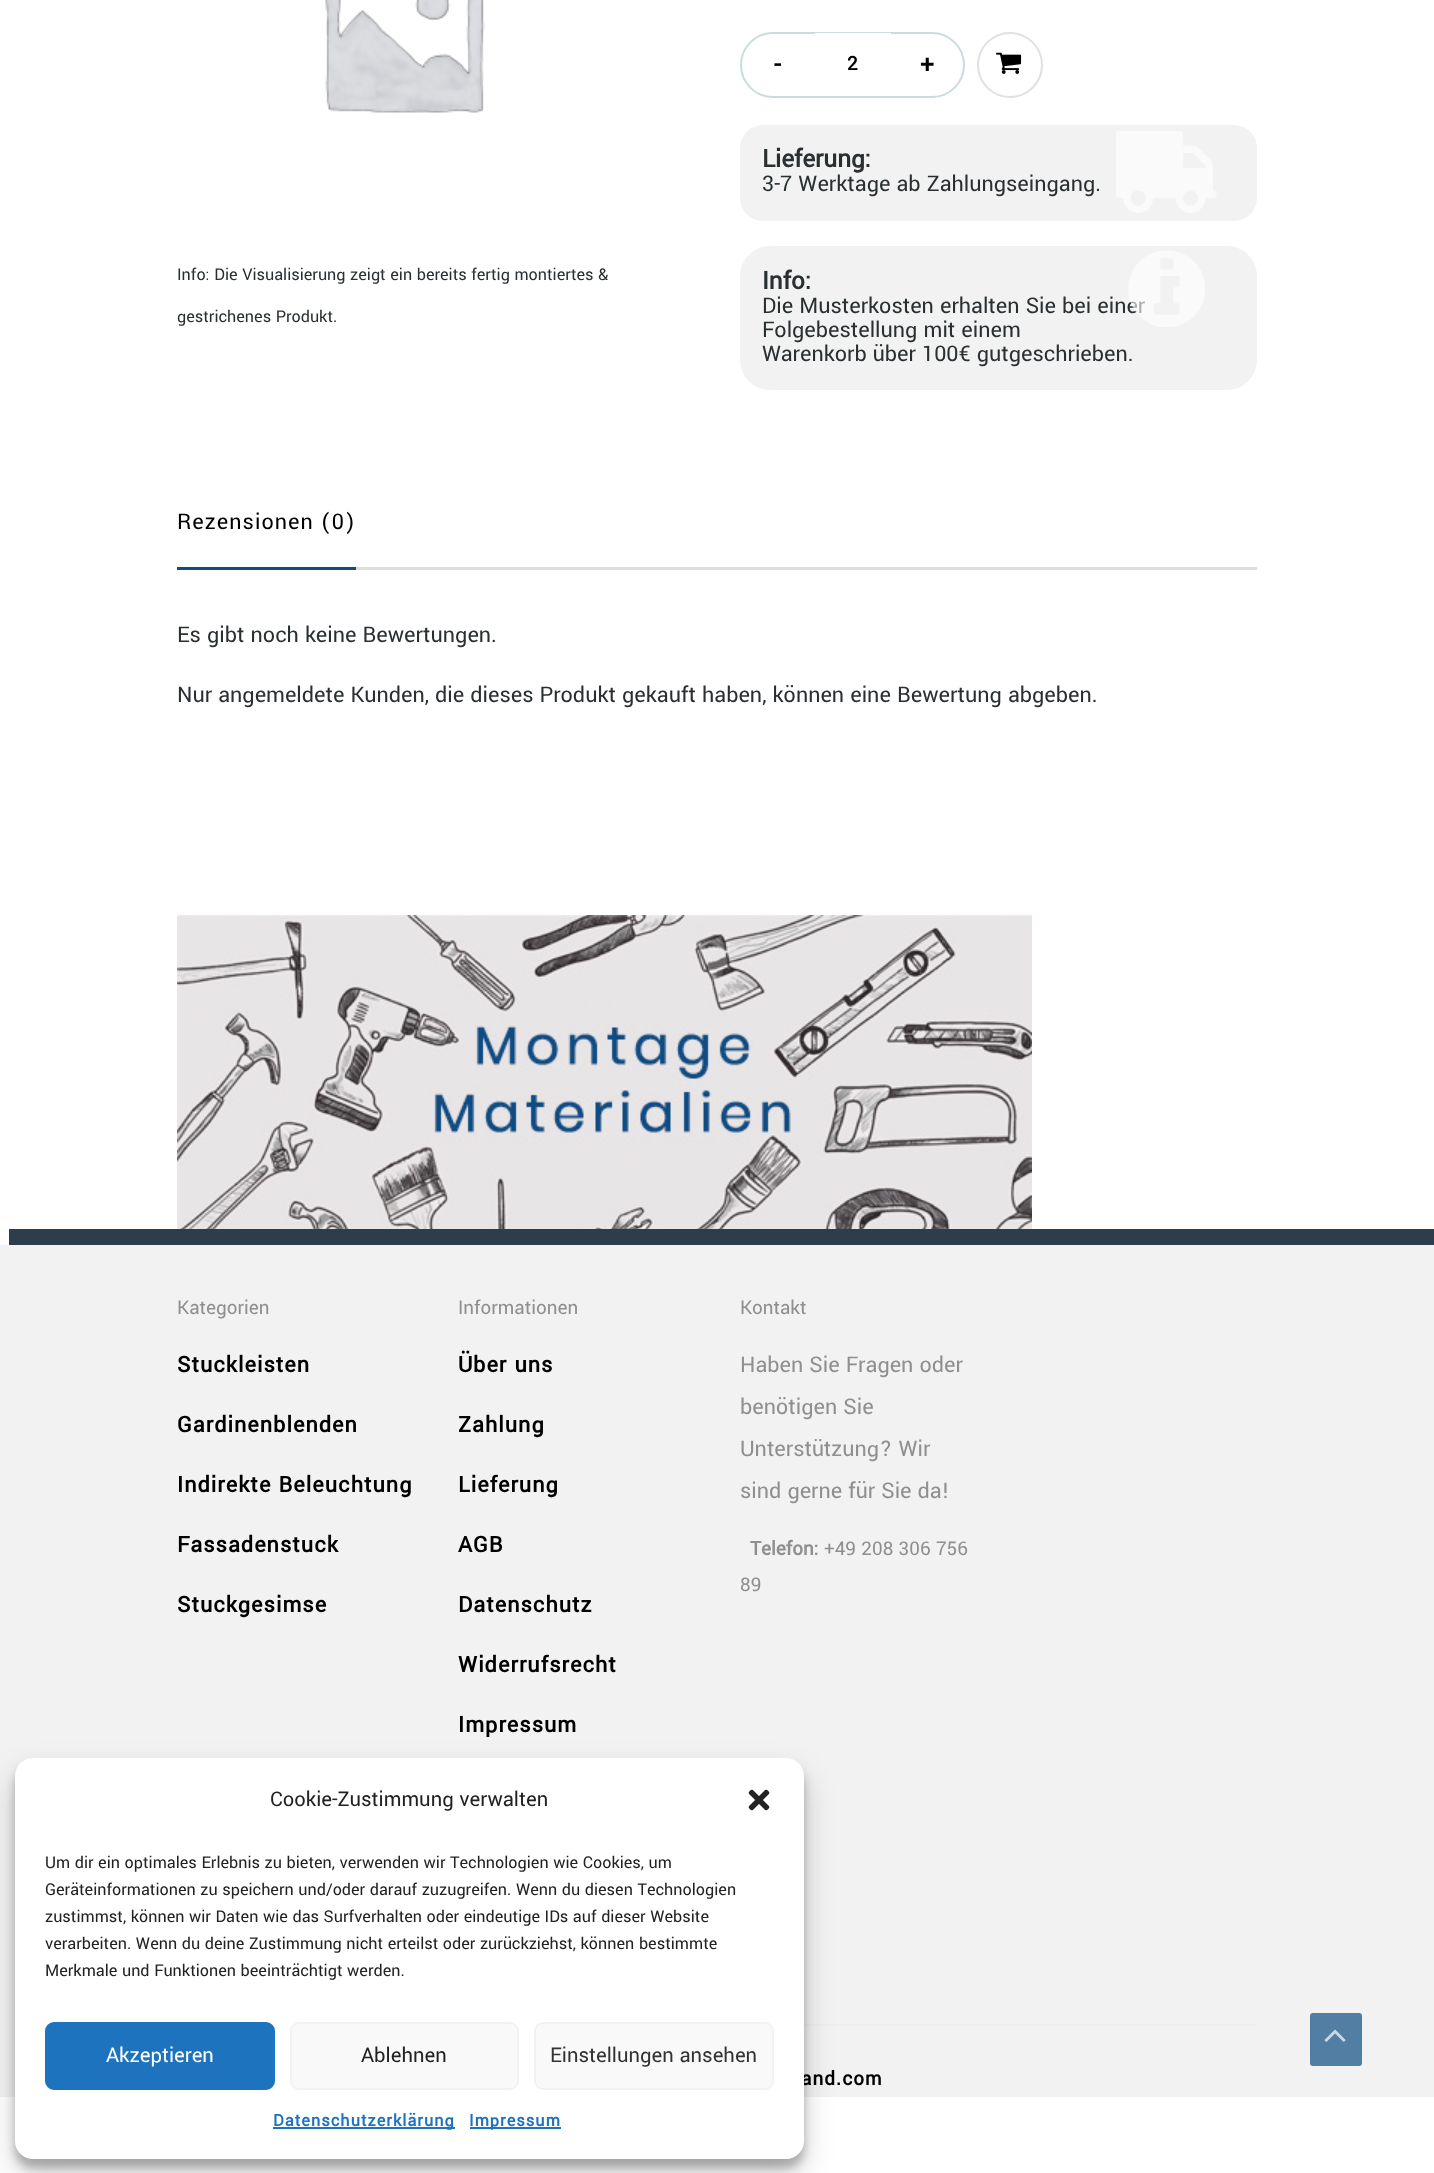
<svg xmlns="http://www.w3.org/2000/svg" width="1434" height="2173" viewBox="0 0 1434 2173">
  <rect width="100%" height="100%" fill="rgb(255,255,255)"/>
  <image x="325" y="0" width="160" height="113" href="pic1.png"/>
  <g font-family="Yantramanav" font-size="18" fill="rgb(42,47,50)">
    <text x="177" y="280">Info: Die Visualisierung zeigt ein bereits fertig montiertes &amp;</text>
    <text x="177" y="322">gestrichenes Produkt.</text>
  </g>
  <rect x="741" y="33" width="223" height="64" rx="32" fill="none" stroke="rgb(201,221,221)" stroke-width="2"/>
  <text x="774" y="73" font-family="Yantramanav" font-size="27" font-weight="bold" fill="rgb(0,0,0)">-</text>
  <path d="M816 33H891V95H816C814.5 95 813 93.5 813 92V36C813 34.5 814.5 33 816 33Z" fill="rgb(255,255,255)"/>
  <text x="847" y="70" font-family="Yantramanav" font-size="21" font-weight="bold" fill="rgb(0,0,0)">2</text>
  <text x="920" y="73" font-family="Yantramanav" font-size="27" font-weight="bold" fill="rgb(0,0,0)">+</text>
  <circle cx="1010" cy="65" r="32" fill="none" stroke="rgb(224,224,224)" stroke-width="2"/>
  <image x="996" y="52" width="26" height="22" href="pic2.png"/>
  <rect x="740" y="125" width="517" height="96" rx="23" fill="rgb(242,242,242)"/>
  <text x="762" y="167" font-family="Yantramanav" font-size="27" font-weight="bold" fill="rgb(42,47,50)">Lieferung:</text>
  <image x="1116" y="131" width="101" height="82" href="pic3.png"/>
  <text x="762" y="191" font-family="Yantramanav" font-size="24" fill="rgb(42,47,50)">3-7 Werktage ab Zahlungseingang.</text>
  <rect x="740" y="246" width="517" height="144" rx="30" fill="rgb(242,242,242)"/>
  <text x="762" y="289" font-family="Yantramanav" font-size="27" font-weight="bold" fill="rgb(42,47,50)">Info:</text>
  <text x="762" y="313" font-family="Yantramanav" font-size="24" fill="rgb(42,47,50)">Die Musterkosten erhalten Sie bei einer</text>
  <image x="1128" y="250" width="77" height="77" href="pic4.png"/>
  <g font-family="Yantramanav" font-size="24" fill="rgb(42,47,50)">
    <text>
      <tspan x="762" y="337">Folgebestellung mit einem</tspan>
      <tspan x="762" y="361">Warenkorb über 100€ gutgeschrieben.</tspan>
    </text>
  </g>
  <rect x="356" y="567" width="901" height="3" fill="rgb(221,221,221)"/>
  <rect x="177" y="567" width="179" height="3" fill="rgb(15,76,130)"/>
  <text x="177" y="529" font-family="Yantramanav" font-size="24" letter-spacing="1.05" fill="rgb(0,0,0)">Rezensionen (0)</text>
  <g font-family="Yantramanav" font-size="24" fill="rgb(42,47,50)">
    <text x="177" y="642">Es gibt noch keine Bewertungen.</text>
    <text x="177" y="702">Nur angemeldete Kunden, die dieses Produkt gekauft haben, können eine Bewertung abgeben.</text>
  </g>
  <image x="177" y="915" width="855" height="314" href="pic5.png"/>
  <rect x="0" y="1245" width="1434" height="852" fill="rgb(242,242,242)"/>
  <rect x="9" y="1229" width="1425" height="16" fill="rgb(45,61,75)"/>
  <text x="177" y="1314" font-family="Yantramanav" font-size="21" fill="rgb(143,143,143)">Kategorien</text>
  <g font-family="Yantramanav" font-size="24" font-weight="bold" letter-spacing="1.05" fill="rgb(0,0,0)">
    <text x="177" y="1372">Stuckleisten</text>
    <text x="177" y="1432">Gardinenblenden</text>
    <text x="177" y="1492">Indirekte Beleuchtung</text>
    <text x="177" y="1552">Fassadenstuck</text>
    <text x="177" y="1612">Stuckgesimse</text>
  </g>
  <text x="458" y="1314" font-family="Yantramanav" font-size="21" fill="rgb(143,143,143)">Informationen</text>
  <g font-family="Yantramanav" font-size="24" font-weight="bold" letter-spacing="1.05" fill="rgb(0,0,0)">
    <text x="458" y="1372">Über uns</text>
    <text x="458" y="1432">Zahlung</text>
    <text x="458" y="1492">Lieferung</text>
    <text x="458" y="1552">AGB</text>
    <text x="458" y="1612">Datenschutz</text>
    <text x="458" y="1672">Widerrufsrecht</text>
    <text x="458" y="1732">Impressum</text>
  </g>
  <text x="740" y="1314" font-family="Yantramanav" font-size="21" fill="rgb(143,143,143)">Kontakt</text>
  <g font-family="Yantramanav" font-size="24" fill="rgb(143,143,143)">
    <text>
      <tspan x="740" y="1372">Haben Sie Fragen oder</tspan>
      <tspan x="740" y="1414">benötigen Sie</tspan>
      <tspan x="740" y="1456">Unterstützung? Wir</tspan>
      <tspan x="740" y="1498">sind gerne für Sie da!</tspan>
    </text>
  </g>
  <text x="750" y="1555" font-family="Yantramanav" font-size="21" font-weight="bold" fill="rgb(143,143,143)">Telefon:</text>
  <g font-family="Yantramanav" font-size="21" fill="rgb(143,143,143)">
    <text x="824" y="1555">+49 208 306 756</text>
    <text x="740" y="1591">89</text>
  </g>
  <rect x="804" y="2024" width="453" height="2" fill="rgb(238,238,238)"/>
  <text x="801" y="2085" font-family="Yantramanav" font-size="21" font-weight="bold" letter-spacing="1.05" fill="rgb(0,0,0)">and.com</text>
  <rect x="1310" y="2013" width="52" height="53" rx="3" fill="rgb(83,126,164)"/>
  <image x="1324" y="2029" width="22" height="13" href="pic6.png"/>
  <rect x="15" y="1767" width="789" height="401" rx="18" fill="rgba(0,0,0,0.23)" filter="blur(4.5px)"/>
  <rect x="15" y="1773" width="789" height="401" rx="18" fill="rgba(0,0,0,0.19)" filter="blur(15px)"/>
  <rect x="15" y="1758" width="789" height="401" rx="18" fill="rgb(255,255,255)"/>
  <text x="270" y="1806" font-family="Yantramanav" font-size="22.5" fill="rgb(34,34,34)">Cookie-Zustimmung verwalten</text>
  <image x="748" y="1789" width="22" height="22" href="pic7.png"/>
  <g font-family="Yantramanav" font-size="18" fill="rgb(34,34,34)">
    <text>
      <tspan x="45" y="1868">Um dir ein optimales Erlebnis zu bieten, verwenden wir Technologien wie Cookies, um</tspan>
      <tspan x="45" y="1895">Geräteinformationen zu speichern und/oder darauf zuzugreifen. Wenn du diesen Technologien</tspan>
      <tspan x="45" y="1922">zustimmst, können wir Daten wie das Surfverhalten oder eindeutige IDs auf dieser Website</tspan>
      <tspan x="45" y="1949">verarbeiten. Wenn du deine Zustimmung nicht erteilst oder zurückziehst, können bestimmte</tspan>
      <tspan x="45" y="1976">Merkmale und Funktionen beeinträchtigt werden.</tspan>
    </text>
  </g>
  <rect x="46" y="2023" width="228" height="66" rx="8" fill="rgb(30,115,190)" stroke="rgb(30,115,190)" stroke-width="2"/>
  <text x="106" y="2062" font-family="Yantramanav" font-size="22.5" fill="rgb(255,255,255)">Akzeptieren</text>
  <rect x="291" y="2023" width="227" height="66" rx="8" fill="rgb(249,249,249)" stroke="rgb(242,242,242)" stroke-width="2"/>
  <text x="361" y="2062" font-family="Yantramanav" font-size="22.5" fill="rgb(34,34,34)">Ablehnen</text>
  <rect x="535" y="2023" width="238" height="66" rx="8" fill="rgb(249,249,249)" stroke="rgb(242,242,242)" stroke-width="2"/>
  <text x="550" y="2062" font-family="Yantramanav" font-size="22.5" fill="rgb(51,51,51)">Einstellungen ansehen</text>
  <rect x="273" y="2127" width="182" height="2" fill="rgb(30,115,190)"/>
  <text x="273" y="2126" font-family="Yantramanav" font-size="18" font-weight="bold" letter-spacing="1.05" fill="rgb(30,115,190)">Datenschutzerklärung</text>
  <rect x="470" y="2127" width="91" height="2" fill="rgb(30,115,190)"/>
  <text x="469" y="2126" font-family="Yantramanav" font-size="18" font-weight="bold" letter-spacing="1.05" fill="rgb(30,115,190)">Impressum</text>
</svg>
